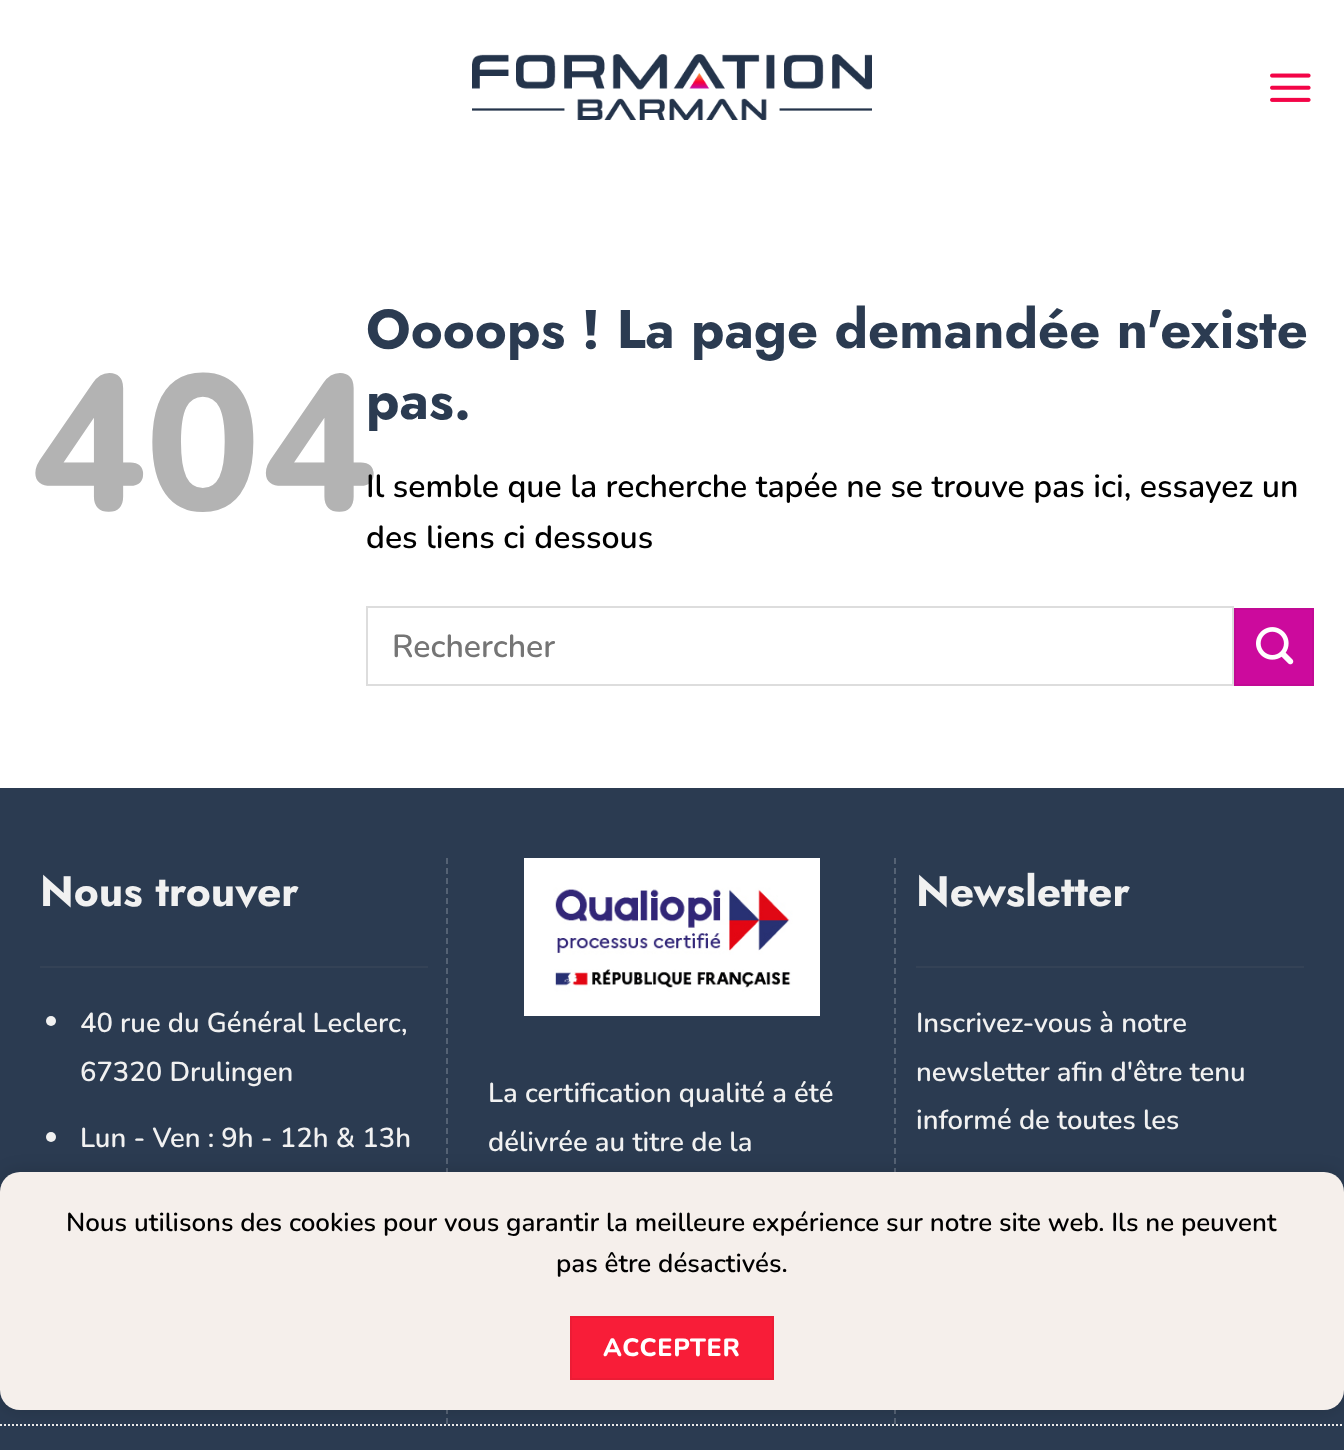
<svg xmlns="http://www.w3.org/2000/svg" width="1344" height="1450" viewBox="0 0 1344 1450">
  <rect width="100%" height="100%" fill="rgb(255,255,255)"/>
  <image x="472" y="54" width="400" height="66" href="pic1.png"/>
  <image x="1270" y="73" width="41" height="29" href="pic2.png"/>
  <text x="30" y="510" font-family="Nunito" font-size="192" font-weight="800" fill="rgb(179,179,179)">404</text>
  <g font-family="Jost" font-size="54.4" font-weight="bold" fill="rgb(43,59,81)">
    <text>
      <tspan x="366" y="348">Oooops ! La page demandée n'existe</tspan>
      <tspan x="366" y="419">pas.</tspan>
    </text>
  </g>
  <g font-family="Nunito" font-size="32" font-weight="600" fill="rgb(0,0,0)">
    <text>
      <tspan x="366" y="497">Il semble que la recherche tapée ne se trouve pas ici, essayez un</tspan>
      <tspan x="366" y="548">des liens ci dessous</tspan>
    </text>
  </g>
  <rect x="367" y="607" width="866" height="78" fill="none" stroke="rgb(221,221,221)" stroke-width="2"/>
  <text x="392" y="657" font-family="Nunito" font-size="32" font-weight="600" fill="rgb(117,117,117)">Rechercher</text>
  <rect x="1235" y="609" width="78" height="76" fill="rgb(204,10,157)" stroke="rgb(194,10,149)" stroke-width="2"/>
  <image x="1256" y="627" width="38" height="38" href="pic3.png"/>
  <rect x="0" y="788" width="1344" height="662" fill="rgb(43,59,81)"/>
  <text x="40" y="906" font-family="Jost" font-size="42.5" font-weight="bold" fill="rgb(241,241,241)">Nous trouver</text>
  <rect x="40" y="966" width="388" height="2" fill="rgb(52,66,86)"/>
  <circle cx="51" cy="1021" r="5" fill="rgb(241,241,241)"/>
  <g font-family="Nunito" font-size="27.4" font-weight="600" fill="rgb(241,241,241)">
    <text>
      <tspan x="80" y="1032">40 rue du Général Leclerc,</tspan>
      <tspan x="80" y="1081">67320 Drulingen</tspan>
    </text>
  </g>
  <circle cx="51" cy="1137" r="5" fill="rgb(241,241,241)"/>
  <text x="80" y="1147" font-family="Nunito" font-size="27.4" font-weight="600" fill="rgb(241,241,241)">Lun - Ven : 9h - 12h &amp; 13h</text>
  <path d="M447 858V1424" fill="none" stroke="rgb(85,98,116)" stroke-width="2" stroke-dasharray="6 4"/>
  <image x="524" y="858" width="296" height="158" href="pic4.png"/>
  <g font-family="Nunito" font-size="27.4" font-weight="600" fill="rgb(241,241,241)">
    <text>
      <tspan x="488" y="1102">La certification qualité a été</tspan>
      <tspan x="488" y="1151">délivrée au titre de la</tspan>
    </text>
  </g>
  <path d="M895 858V1424" fill="none" stroke="rgb(85,98,116)" stroke-width="2" stroke-dasharray="6 4"/>
  <text x="916" y="906" font-family="Jost" font-size="42.5" font-weight="bold" fill="rgb(241,241,241)">Newsletter</text>
  <rect x="916" y="966" width="388" height="2" fill="rgb(52,66,86)"/>
  <g font-family="Nunito" font-size="27.4" font-weight="600" fill="rgb(241,241,241)">
    <text>
      <tspan x="916" y="1032">Inscrivez-vous à notre</tspan>
      <tspan x="916" y="1081">newsletter afin d'être tenu</tspan>
      <tspan x="916" y="1129">informé de toutes les</tspan>
    </text>
  </g>
  <path d="M0 1425H1344" fill="none" stroke="rgb(236,236,236)" stroke-width="2" stroke-dasharray="2 2"/>
  <rect x="0" y="1172" width="1344" height="238" rx="20" fill="rgba(0,0,0,0.14)" filter="blur(9px)"/>
  <rect x="0" y="1172" width="1344" height="238" rx="20" fill="rgb(245,239,235)"/>
  <g font-family="Nunito" font-size="25.9" font-weight="600" fill="rgb(0,0,0)">
    <text x="66" y="1231">Nous utilisons des cookies pour vous garantir la meilleure expérience sur notre site web. Ils ne peuvent</text>
    <text x="556" y="1272">pas être désactivés.</text>
  </g>
  <rect x="571" y="1317" width="202" height="62" fill="rgb(248,29,56)" stroke="rgb(236,28,53)" stroke-width="2"/>
  <text x="603" y="1356" font-family="Nunito" font-size="25" font-weight="800" letter-spacing="0.75" fill="rgb(255,255,255)">ACCEPTER</text>
</svg>
